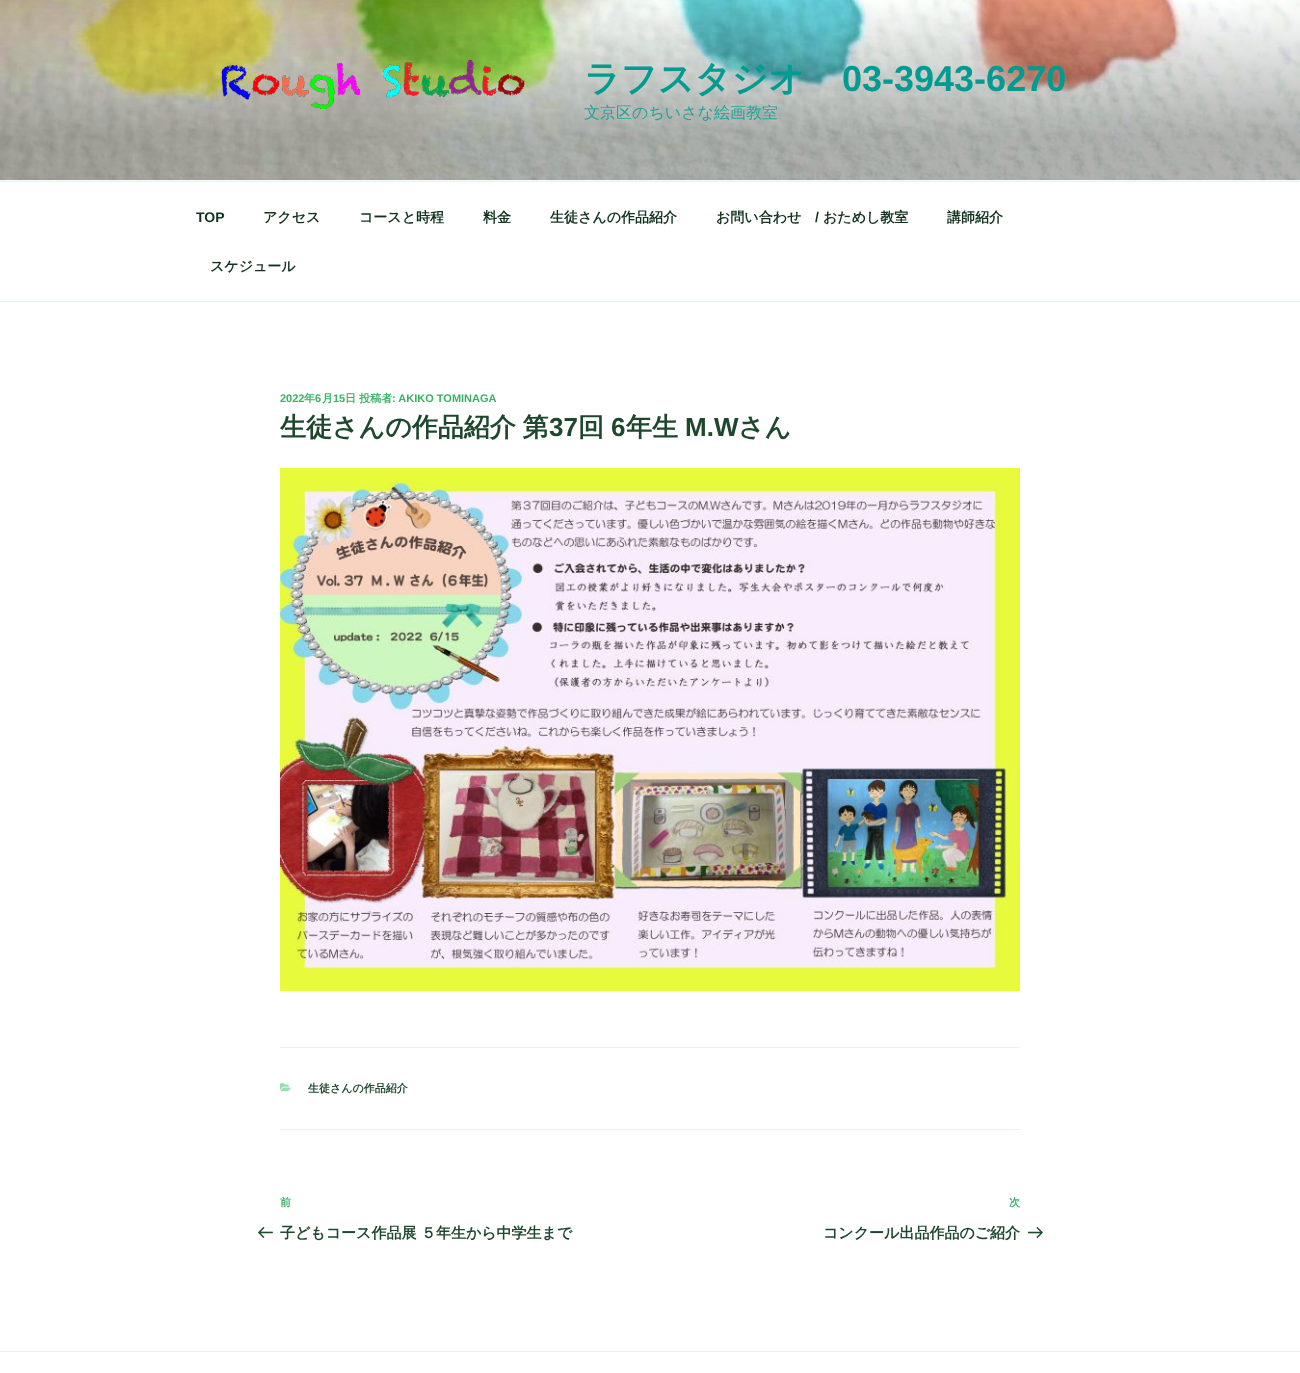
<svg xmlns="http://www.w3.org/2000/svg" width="1300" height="1373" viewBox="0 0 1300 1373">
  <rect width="100%" height="100%" fill="rgb(255,255,255)"/>
  <rect x="0" y="180" width="1300" height="1" fill="rgb(247,252,249)"/>
  <image x="0" y="0" width="1300" height="180" href="pic1.png"/>
  <image x="221" y="59" width="304" height="51" href="pic2.png"/>
  <text x="584" y="91" font-family="WenQuanYi Zen Hei" font-size="36" font-weight="bold" fill="rgb(1,155,145)">ラフスタジオ</text>
  <text x="842" y="91" font-family="Liberation Sans" font-size="36" font-weight="bold" fill="rgb(1,155,145)">03-3943-6270</text>
  <text x="584" y="118" font-family="WenQuanYi Zen Hei" font-size="16" font-weight="500" fill="rgb(37,161,152)">文京区のちいさな絵画教室</text>
  <rect x="0" y="181" width="1300" height="1" fill="rgb(228,246,235)"/>
  <rect x="0" y="301" width="1300" height="1" fill="rgb(228,246,235)"/>
  <text x="196" y="222" font-family="Liberation Sans" font-size="14" font-weight="bold" fill="rgb(17,50,29)">TOP</text>
  <g font-family="WenQuanYi Zen Hei" font-size="14" font-weight="bold" fill="rgb(17,50,29)">
    <text x="263" y="222">アクセス</text>
    <text x="359" y="222">コースと時程</text>
    <text x="483" y="222">料金</text>
    <text x="550" y="222">生徒さんの作品紹介</text>
    <text x="716" y="222">お問い合わせ</text>
  </g>
  <text x="815" y="222" font-family="Liberation Sans" font-size="14" font-weight="bold" fill="rgb(17,50,29)">/</text>
  <g font-family="WenQuanYi Zen Hei" font-size="14" font-weight="bold" fill="rgb(17,50,29)">
    <text x="823" y="222">おためし教室</text>
    <text x="947" y="222">講師紹介</text>
    <text x="210" y="271">スケジュール</text>
  </g>
  <text x="280" y="402" font-family="Liberation Sans" font-size="11" font-weight="bold" fill="rgb(59,176,102)">2022</text>
  <text x="304" y="402" font-family="WenQuanYi Zen Hei" font-size="11" font-weight="bold" fill="rgb(59,176,102)">年</text>
  <text x="315" y="402" font-family="Liberation Sans" font-size="11" font-weight="bold" fill="rgb(59,176,102)">6</text>
  <text x="322" y="402" font-family="WenQuanYi Zen Hei" font-size="11" font-weight="bold" fill="rgb(59,176,102)">月</text>
  <text x="333" y="402" font-family="Liberation Sans" font-size="11" font-weight="bold" fill="rgb(59,176,102)">15</text>
  <text x="345" y="402" font-family="WenQuanYi Zen Hei" font-size="11" font-weight="bold" fill="rgb(59,176,102)">日 投稿者</text>
  <text x="392" y="402" font-family="Liberation Sans" font-size="11" font-weight="bold" fill="rgb(59,176,102)">: AKIKO TOMINAGA</text>
  <text x="280" y="436" word-spacing="-1" font-family="WenQuanYi Zen Hei" font-size="26" font-weight="bold" fill="rgb(31,71,46)">生徒さんの作品紹介 第</text>
  <text x="549" y="436" font-family="Liberation Sans" font-size="26" font-weight="bold" fill="rgb(31,71,46)">37</text>
  <text x="578" y="436" font-family="WenQuanYi Zen Hei" font-size="26" font-weight="bold" fill="rgb(31,71,46)">回</text>
  <text x="611" y="436" font-family="Liberation Sans" font-size="26" font-weight="bold" fill="rgb(31,71,46)">6</text>
  <text x="626" y="436" font-family="WenQuanYi Zen Hei" font-size="26" font-weight="bold" fill="rgb(31,71,46)">年生</text>
  <text x="685" y="436" font-family="Liberation Sans" font-size="26" font-weight="bold" fill="rgb(31,71,46)">M.W</text>
  <text x="738" y="436" font-family="WenQuanYi Zen Hei" font-size="26" font-weight="bold" fill="rgb(31,71,46)">さん</text>
  <image x="280" y="468" width="740" height="523" href="pic3.png"/>
  <rect x="280" y="1047" width="740" height="1" fill="rgb(228,246,235)"/>
  <rect x="280" y="1129" width="740" height="1" fill="rgb(228,246,235)"/>
  <image x="280" y="1083" width="11" height="9" href="pic4.png"/>
  <text x="308" y="1092" font-family="WenQuanYi Zen Hei" font-size="11" font-weight="bold" fill="rgb(31,71,46)">生徒さんの作品紹介</text>
  <text x="280" y="1206" font-family="WenQuanYi Zen Hei" font-size="11" font-weight="bold" fill="rgb(59,176,102)">前</text>
  <image x="258" y="1227" width="15" height="11" href="pic5.png"/>
  <text x="280" y="1238" font-family="WenQuanYi Zen Hei" font-size="15" font-weight="bold" fill="rgb(31,71,46)">子どもコース作品展 ５年生から中学生まで</text>
  <text x="1009" y="1206" font-family="WenQuanYi Zen Hei" font-size="11" font-weight="bold" fill="rgb(59,176,102)">次</text>
  <text x="823" y="1238" font-family="WenQuanYi Zen Hei" font-size="15" font-weight="bold" fill="rgb(31,71,46)">コンクール出品作品のご紹介</text>
  <image x="1028" y="1227" width="15" height="12" href="pic6.png"/>
  <rect x="0" y="1351" width="1300" height="1" fill="rgb(228,246,235)"/>
</svg>
